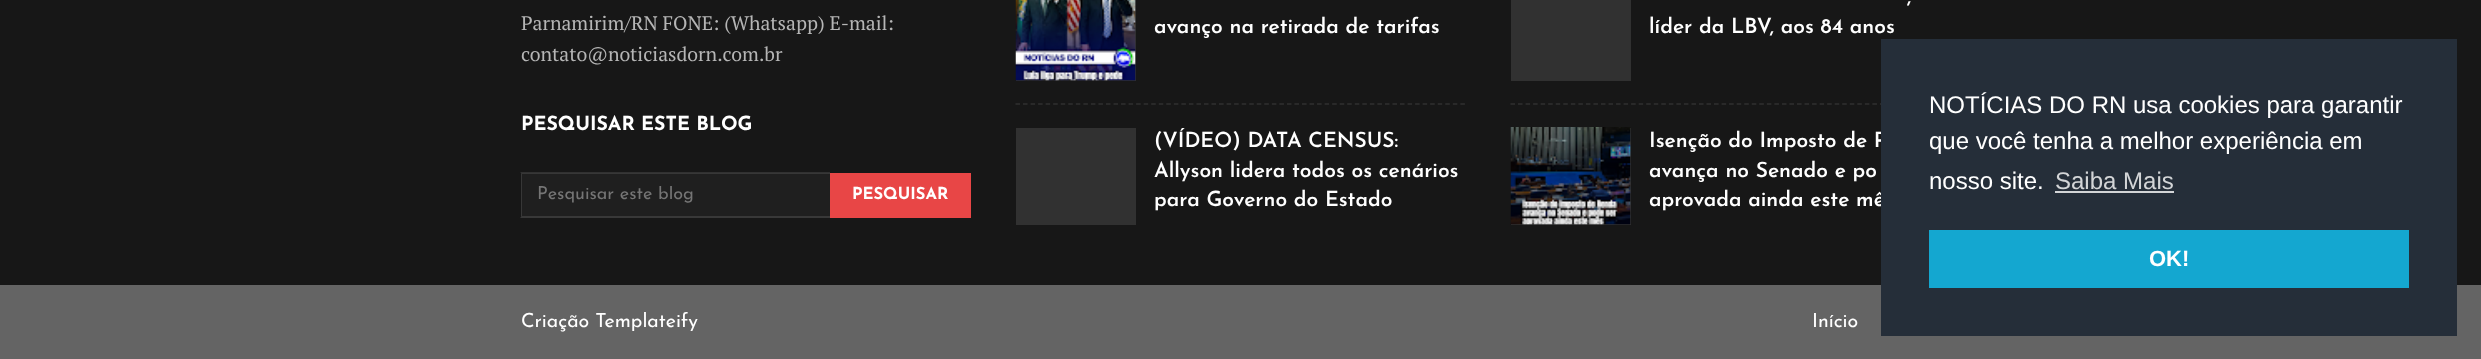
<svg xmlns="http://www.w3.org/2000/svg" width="2481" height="359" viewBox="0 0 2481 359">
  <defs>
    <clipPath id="clip1"><rect x="521" y="0" width="1440" height="285"/></clipPath>
    <clipPath id="clip2"><rect x="537" y="186" width="278" height="18"/></clipPath>
  </defs>
  <rect width="100%" height="100%" fill="rgb(23,23,23)"/>
  <g font-family="PT Serif" font-size="19.5" fill="rgb(181,181,181)">
    <text>
      <tspan x="521" y="30">Parnamirim/RN FONE: (Whatsapp) E-mail:</tspan>
      <tspan x="521" y="61">contato@noticiasdorn.com.br</tspan>
    </text>
  </g>
  <text x="521" y="130" font-family="Josefin Sans" font-size="19.5" font-weight="bold" fill="rgb(255,255,255)">PESQUISAR ESTE BLOG</text>
  <rect x="521" y="173" width="309" height="44" fill="rgb(31,31,31)"/>
  <path d="M520 172H830V174H522Z" fill="rgba(155,155,155,0.2)"/>
  <path d="M830 218H520L522 216H830Z" fill="rgb(56,56,56)"/>
  <g clip-path="url(#clip1)">
    <path d="M520 218V172L522 174V216Z" fill="rgba(155,155,155,0.2)"/>
  </g>
  <g clip-path="url(#clip2)">
    <text x="537" y="199" font-family="Josefin Sans" font-size="18" fill="rgb(117,117,117)">Pesquisar este blog</text>
  </g>
  <rect x="830" y="173" width="141" height="45" fill="rgb(232,70,70)"/>
  <text x="852" y="199" font-family="Josefin Sans" font-size="16.5" font-weight="bold" fill="rgb(255,255,255)">PESQUISAR</text>
  <rect x="1016" y="0" width="120" height="81" fill="rgb(49,49,49)"/>
  <image x="1015" y="0" width="121" height="81" href="pic1.png"/>
  <text x="1154" y="33" font-family="Josefin Sans" font-size="21" font-weight="600" fill="rgb(255,255,255)">avanço na retirada de tarifas</text>
  <path d="M1015.5 104H1465.5" fill="none" stroke="rgb(49,49,49)" stroke-width="1.5" stroke-dasharray="4.5 3.04"/>
  <rect x="1016" y="128" width="120" height="97" fill="rgb(49,49,49)"/>
  <g font-family="Josefin Sans" font-size="21" font-weight="600" fill="rgb(255,255,255)">
    <text>
      <tspan x="1154" y="147">(VÍDEO) DATA CENSUS:</tspan>
      <tspan x="1154" y="177">Allyson lidera todos os cenários</tspan>
      <tspan x="1154" y="206">para Governo do Estado</tspan>
    </text>
  </g>
  <rect x="1511" y="0" width="120" height="81" fill="rgb(49,49,49)"/>
  <g font-family="Josefin Sans" font-size="21" font-weight="600" fill="rgb(255,255,255)">
    <text x="1907" y="3">,</text>
    <text x="1649" y="33">líder da LBV, aos 84 anos</text>
  </g>
  <path d="M1510.5 104H1960.5" fill="none" stroke="rgb(49,49,49)" stroke-width="1.5" stroke-dasharray="4.5 3.04"/>
  <rect x="1511" y="128" width="120" height="97" fill="rgb(49,49,49)"/>
  <image x="1510" y="127" width="121" height="98" href="pic2.png"/>
  <g font-family="Josefin Sans" font-size="21" font-weight="600" fill="rgb(255,255,255)">
    <text>
      <tspan x="1649" y="147">Isenção do Imposto de R</tspan>
      <tspan x="1649" y="177">avança no Senado e po</tspan>
      <tspan x="1649" y="206">aprovada ainda este mê</tspan>
    </text>
  </g>
  <rect x="0" y="285" width="2481" height="74" fill="rgb(100,100,100)"/>
  <g font-family="Josefin Sans" font-size="19.5" fill="rgb(255,255,255)">
    <text x="521" y="327">Criação Templateify</text>
    <text x="1812" y="327">Início</text>
  </g>
  <rect x="1881" y="39" width="576" height="297" fill="rgb(37,46,57)"/>
  <g font-family="Liberation Sans" font-size="24" fill="rgb(255,255,255)">
    <text>
      <tspan x="1929" y="113">NOTÍCIAS DO RN usa cookies para garantir</tspan>
      <tspan x="1929" y="149">que você tenha a melhor experiência em</tspan>
      <tspan x="1929" y="189">nosso site.</tspan>
    </text>
  </g>
  <text x="2055" y="189" font-family="Liberation Sans" font-size="24" fill="rgb(211,213,215)">Saiba Mais</text>
  <rect x="2055" y="191" width="119" height="2" fill="rgb(211,213,215)"/>
  <rect x="1929" y="230" width="480" height="58" fill="rgb(20,167,208)"/>
  <text x="2149" y="266" font-family="Liberation Sans" font-size="22" font-weight="bold" fill="rgb(255,255,255)">OK!</text>
</svg>
